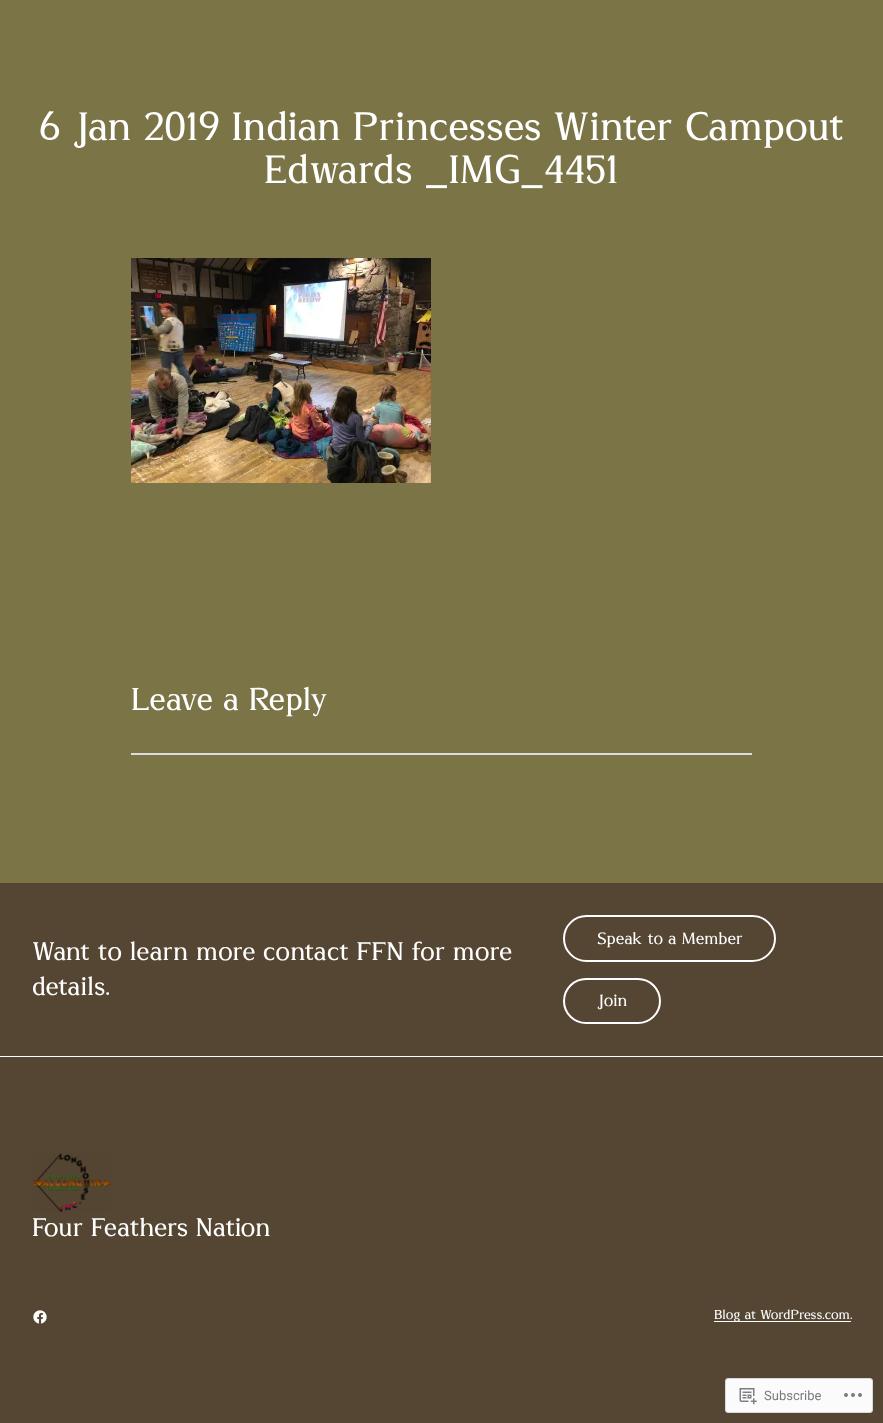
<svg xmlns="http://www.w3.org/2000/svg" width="883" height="1423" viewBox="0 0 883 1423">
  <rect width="100%" height="100%" fill="rgb(122,116,70)"/>
  <g font-family="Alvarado" font-size="39.45" fill="rgb(255,255,255)">
    <text x="39" y="140">6 Jan 2019 Indian Princesses Winter Campout</text>
    <text x="264" y="183">Edwards _IMG_4451</text>
  </g>
  <image x="131" y="258" width="300" height="225" href="pic1.png"/>
  <text x="131" y="710" font-family="Alvarado" font-size="31.5" fill="rgb(255,255,255)">Leave a Reply</text>
  <rect x="131" y="753" width="621" height="2" fill="rgb(220,220,222)"/>
  <rect x="0" y="883" width="883" height="173" fill="rgb(85,70,51)"/>
  <rect x="0" y="1056" width="883" height="1" fill="rgb(255,255,255)"/>
  <g font-family="Alvarado" font-size="25.25" fill="rgb(255,255,255)">
    <text>
      <tspan x="32" y="960">Want to learn more contact FFN for more</tspan>
      <tspan x="32" y="995">details.</tspan>
    </text>
  </g>
  <rect x="564" y="916" width="211" height="45" rx="22.5" fill="none" stroke="rgb(255,255,255)" stroke-width="2"/>
  <text x="597" y="944" font-family="Alvarado" font-size="16.25" fill="rgb(255,255,255)">Speak to a Member</text>
  <rect x="564" y="979" width="96" height="44" rx="22" fill="none" stroke="rgb(255,255,255)" stroke-width="2"/>
  <text x="597" y="1006" font-family="Alvarado" font-size="16.25" fill="rgb(255,255,255)">Join</text>
  <rect x="0" y="1057" width="883" height="366" fill="rgb(85,70,51)"/>
  <image x="33" y="1153" width="78" height="59" href="pic2.png"/>
  <text x="32" y="1236" font-family="Alvarado" font-size="25.25" fill="rgb(255,255,255)">Four Feathers Nation</text>
  <image x="33" y="1310" width="14" height="14" href="pic3.png"/>
  <rect x="714" y="1321" width="137" height="1" fill="rgb(255,255,255)"/>
  <text x="714" y="1319" font-family="Alvarado" font-size="13" fill="rgb(255,255,255)">Blog at WordPress.com.</text>
  <rect x="725.5" y="1378.5" width="147" height="34" rx="2.5" fill="rgb(252,251,251)" stroke="rgb(217,217,219)"/>
  <image x="739" y="1388" width="18" height="17" href="pic4.png"/>
  <text x="764" y="1400" font-family="Roboto" font-size="13" fill="rgb(119,123,128)">Subscribe</text>
  <image x="844" y="1393" width="18" height="4" href="pic5.png"/>
</svg>
